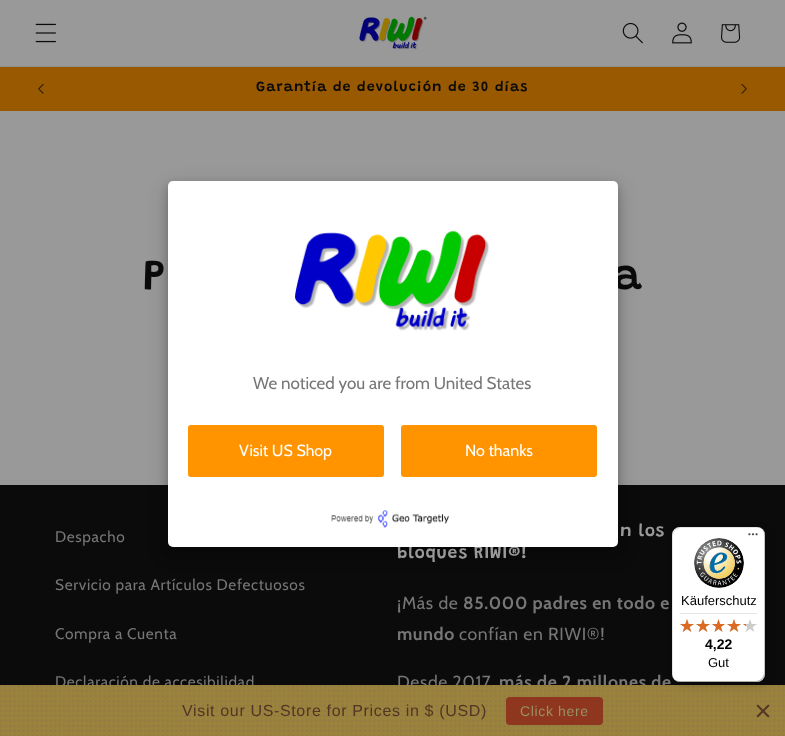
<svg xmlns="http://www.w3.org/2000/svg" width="785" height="736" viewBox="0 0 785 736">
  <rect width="100%" height="100%" fill="rgb(153,153,153)"/>
  <rect x="0" y="66" width="785" height="1" fill="rgb(142,142,142)"/>
  <image x="35" y="23" width="21" height="20" href="pic1.png"/>
  <image x="359" y="16" width="68" height="34" href="pic2.png"/>
  <image x="622" y="22" width="21" height="22" href="pic3.png"/>
  <image x="672" y="22" width="20" height="22" href="pic4.png"/>
  <image x="721" y="24" width="20" height="19" href="pic5.png"/>
  <rect x="0" y="67" width="785" height="44" fill="rgb(153,89,0)"/>
  <image x="38" y="83" width="6" height="11" href="pic6.png"/>
  <text x="256" y="91" font-family="Grandstander" font-size="14.25" font-weight="600" letter-spacing="1.1" fill="rgb(11,11,11)">Garantía de devolución de 30 días</text>
  <image x="741" y="83" width="6" height="11" href="pic7.png"/>
  <g font-family="Grandstander" font-size="44" font-weight="600" letter-spacing="0.65" fill="rgb(11,11,11)">
    <text x="143" y="289">P</text>
    <text x="613" y="289">a</text>
  </g>
  <rect x="0" y="485" width="785" height="200" fill="rgb(11,11,11)"/>
  <rect x="168" y="187" width="450" height="366" rx="5" fill="rgba(0,0,0,0.19)" filter="blur(10px)"/>
  <rect x="168" y="185" width="450" height="366" rx="5" fill="rgba(0,0,0,0.2)" filter="blur(4px)"/>
  <text x="397" y="558" font-family="Grandstander" font-size="17.6" font-weight="600" letter-spacing="0.65" fill="rgb(153,153,153)">bloques RIWI®!</text>
  <rect x="168" y="181" width="450" height="366" rx="5" fill="rgb(255,255,255)"/>
  <image x="295" y="231" width="194" height="100" href="pic8.png"/>
  <text x="253" y="389" font-family="Cabin" font-size="17" fill="rgb(118,118,118)">We noticed you are from United States</text>
  <rect x="188" y="425" width="196" height="52" rx="3" fill="rgb(255,147,0)"/>
  <text x="239" y="456" font-family="Cabin" font-size="16" fill="rgb(255,255,255)">Visit US Shop</text>
  <rect x="401" y="425" width="196" height="52" rx="3" fill="rgb(255,147,0)"/>
  <text x="465" y="456" font-family="Cabin" font-size="16" fill="rgb(255,255,255)">No thanks</text>
  <image x="331" y="510" width="118" height="18" href="pic9.png"/>
  <g font-family="Cabin" font-size="15.4" letter-spacing="0.65" fill="rgb(118,118,118)">
    <text x="55" y="542">Despacho</text>
    <text x="55" y="590">Servicio para Artículos Defectuosos</text>
    <text x="55" y="639">Compra a Cuenta</text>
    <text x="55" y="687">Declaración de accesibilidad</text>
  </g>
  <text x="620" y="536" font-family="Grandstander" font-size="17.6" font-weight="600" letter-spacing="0.65" fill="rgb(153,153,153)">n los</text>
  <text x="397" y="609" font-family="Cabin" font-size="17.6" letter-spacing="0.65" fill="rgb(118,118,118)">¡Más de</text>
  <g font-family="Cabin" font-size="17.6" font-weight="bold" letter-spacing="0.65" fill="rgb(118,118,118)">
    <text x="463" y="609">85.000 padres en todo e</text>
    <text x="397" y="640">mundo</text>
  </g>
  <g font-family="Cabin" font-size="17.6" letter-spacing="0.65" fill="rgb(118,118,118)">
    <text x="459" y="640">confían en RIWI®!</text>
    <text x="397" y="688">Desde 2017</text>
  </g>
  <text x="499" y="688" font-family="Cabin" font-size="17.6" font-weight="bold" letter-spacing="0.65" fill="rgb(118,118,118)">más de 2 millones de</text>
  <image x="0" y="685" width="785" height="51" href="pic17.png"/>
  <rect x="675" y="530" width="93" height="155" rx="8" fill="rgba(0,0,0,0.15)" filter="blur(4px)"/>
  <rect x="672" y="527" width="93" height="155" rx="8" fill="rgb(255,255,255)"/>
  <path d="M681 528H758C760 528 762 529 764 531C762 529 760 527 757 527H680C676 527 672 531 672 535V674C672 677 674 679 676 681C674 679 673 677 673 675V536C673 532 677 528 681 528Z" fill="rgba(0,0,0,0.1)"/>
  <path d="M673 678C675 680 677 682 680 682H757C761 682 765 678 765 674V535C765 532 763 530 761 528C763 530 764 532 764 534V673C764 677 760 681 756 681H679C677 681 675 680 673 678Z" fill="rgba(0,0,0,0.2)"/>
  <path d="M674 679C675 681 678 682 680 682H757C761 682 765 678 765 674V535C765 533 764 530 762 529C763 530 764 532 764 534V673C764 678 761 681 756 681H679C677 681 675 680 674 679Z" fill="rgba(50,50,50,0.2)"/>
  <path d="M756 682H757C761 682 765 678 765 674V535C765 533 764 530 762 529C763 530 764 532 764 534V674C764 678 761 682 756 682Z" fill="rgba(255,255,255,0.3)"/>
  <image x="748" y="533" width="10" height="3" href="pic10.png"/>
  <image x="694" y="538" width="50" height="50" href="pic11.png"/>
  <text x="681" y="605" font-family="Liberation Sans" font-size="13" fill="rgb(0,0,0)">Käuferschutz</text>
  <rect x="680" y="613" width="77" height="1" fill="rgb(229,229,229)"/>
  <image x="680" y="619" width="14" height="13" href="pic12.png"/>
  <image x="696" y="619" width="14" height="13" href="pic12.png"/>
  <image x="712" y="619" width="13" height="13" href="pic13.png"/>
  <image x="727" y="619" width="14" height="13" href="pic12.png"/>
  <image x="743" y="619" width="14" height="13" href="pic12.png"/>
  <image x="680" y="619" width="14" height="13" href="pic14.png"/>
  <image x="696" y="619" width="14" height="13" href="pic14.png"/>
  <image x="712" y="619" width="13" height="13" href="pic15.png"/>
  <image x="727" y="619" width="14" height="13" href="pic14.png"/>
  <image x="743" y="624" width="3" height="8" href="pic16.png"/>
  <text x="705" y="649" font-family="Liberation Sans" font-size="14" font-weight="bold" fill="rgb(0,0,0)">4,22</text>
  <text x="708" y="667" font-family="Liberation Sans" font-size="13" fill="rgb(0,0,0)">Gut</text>
  <text x="182" y="716" font-family="Liberation Sans" font-size="16" letter-spacing="0.65" fill="rgb(81,54,36)">Visit our US-Store for Prices in $ (USD)</text>
  <rect x="506" y="697" width="97" height="28" rx="4" fill="rgb(142,54,30)"/>
  <text x="520" y="716" font-family="Liberation Sans" font-size="14" letter-spacing="0.65" fill="rgb(153,144,99)">Click here</text>
  <image x="756" y="704" width="14" height="14" href="pic18.png"/>
</svg>
